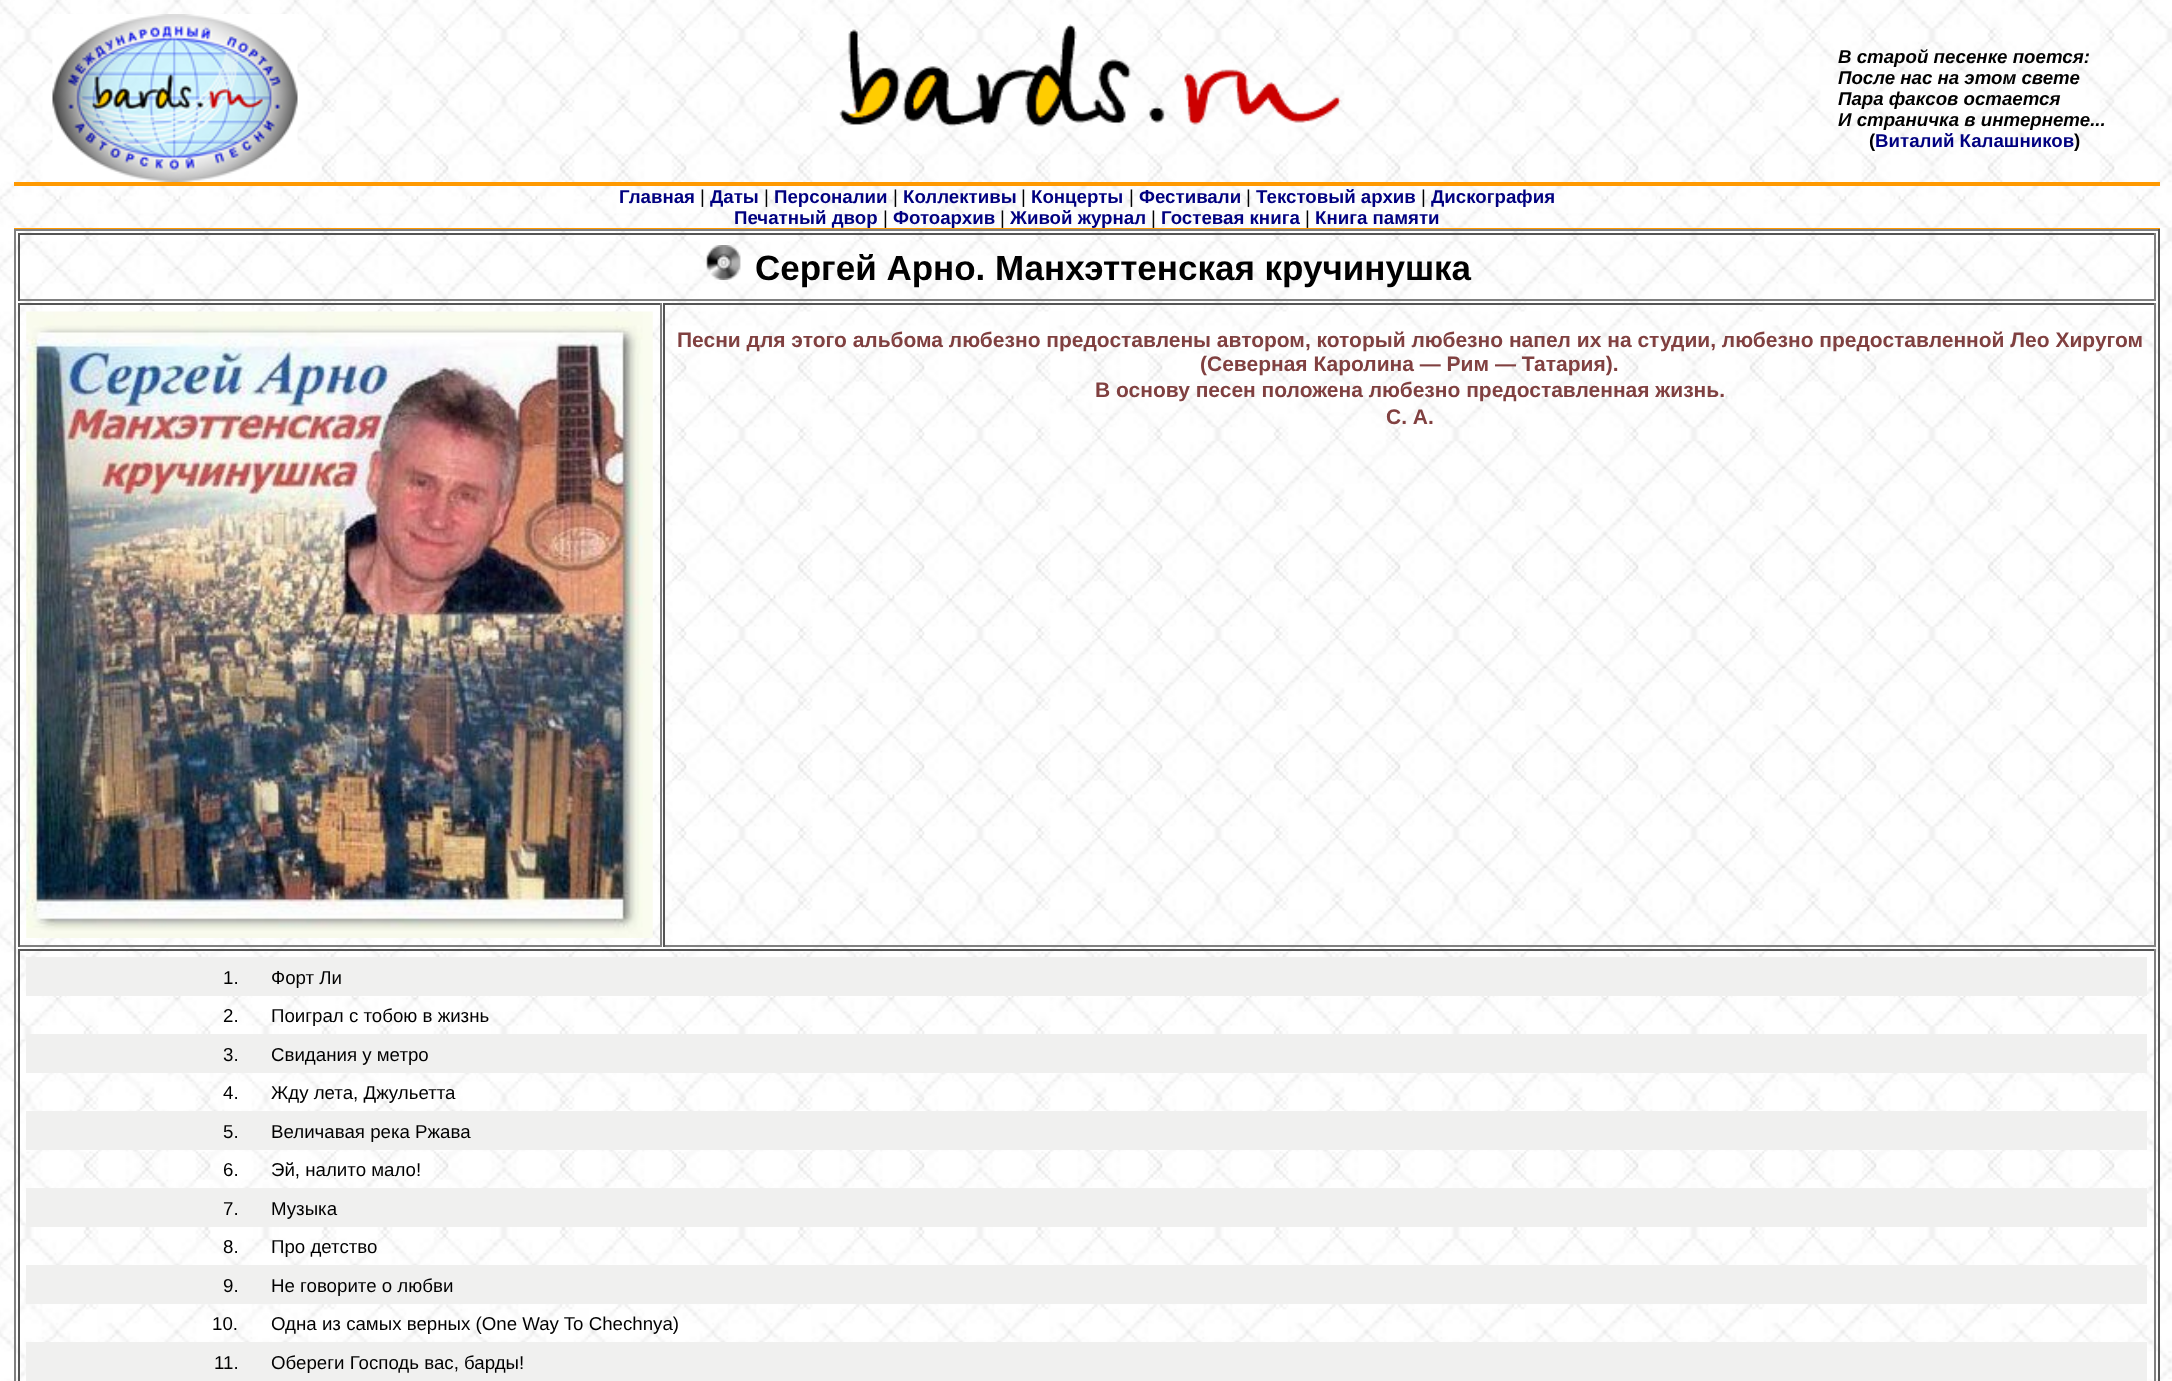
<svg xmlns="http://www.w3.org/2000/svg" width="2172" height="1381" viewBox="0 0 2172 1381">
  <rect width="100%" height="100%" fill="rgb(255,255,255)"/>
  <image x="0" y="0" width="2172" height="1381" href="pic1.png"/>
  <image x="52" y="14" width="246" height="168" href="pic2.png"/>
  <image x="839" y="24" width="502" height="103" href="pic3.png"/>
  <g font-family="Liberation Sans" font-size="18.7" font-weight="bold" font-style="italic" fill="rgb(0,0,0)">
    <text>
      <tspan x="1838" y="63">В старой песенке поется:</tspan>
      <tspan x="1838" y="84">После нас на этом свете</tspan>
      <tspan x="1838" y="105">Пара факсов остается</tspan>
      <tspan x="1838" y="126">И страничка в интернете...</tspan>
    </text>
  </g>
  <text x="1869" y="147" font-family="Liberation Sans" font-size="18.7" font-weight="bold" fill="rgb(0,0,0)">(</text>
  <text x="1875" y="147" font-family="Liberation Sans" font-size="18.7" font-weight="bold" fill="rgb(0,0,128)">Виталий Калашников</text>
  <text x="2074" y="147" font-family="Liberation Sans" font-size="18.7" font-weight="bold" fill="rgb(0,0,0)">)</text>
  <rect x="14" y="182" width="2146" height="4" fill="rgb(255,153,0)"/>
  <text x="619" y="203" font-family="Liberation Sans" font-size="18.7" font-weight="bold" fill="rgb(0,0,128)">Главная</text>
  <text x="700" y="203" font-family="Liberation Sans" font-size="18.7" fill="rgb(0,0,0)">|</text>
  <text x="710" y="203" font-family="Liberation Sans" font-size="18.7" font-weight="bold" fill="rgb(0,0,128)">Даты</text>
  <text x="764" y="203" font-family="Liberation Sans" font-size="18.7" fill="rgb(0,0,0)">|</text>
  <text x="774" y="203" font-family="Liberation Sans" font-size="18.7" font-weight="bold" fill="rgb(0,0,128)">Персоналии</text>
  <text x="893" y="203" font-family="Liberation Sans" font-size="18.7" fill="rgb(0,0,0)">|</text>
  <text x="903" y="203" font-family="Liberation Sans" font-size="18.7" font-weight="bold" fill="rgb(0,0,128)">Коллективы</text>
  <text x="1021" y="203" font-family="Liberation Sans" font-size="18.7" fill="rgb(0,0,0)">|</text>
  <text x="1031" y="203" font-family="Liberation Sans" font-size="18.7" font-weight="bold" fill="rgb(0,0,128)">Концерты</text>
  <text x="1129" y="203" font-family="Liberation Sans" font-size="18.7" fill="rgb(0,0,0)">|</text>
  <text x="1139" y="203" font-family="Liberation Sans" font-size="18.7" font-weight="bold" fill="rgb(0,0,128)">Фестивали</text>
  <text x="1246" y="203" font-family="Liberation Sans" font-size="18.7" fill="rgb(0,0,0)">|</text>
  <text x="1256" y="203" font-family="Liberation Sans" font-size="18.7" font-weight="bold" fill="rgb(0,0,128)">Текстовый архив</text>
  <text x="1421" y="203" font-family="Liberation Sans" font-size="18.7" fill="rgb(0,0,0)">|</text>
  <g font-family="Liberation Sans" font-size="18.7" font-weight="bold" fill="rgb(0,0,128)">
    <text x="1431" y="203">Дискография</text>
    <text x="734" y="224">Печатный двор</text>
  </g>
  <text x="883" y="224" font-family="Liberation Sans" font-size="18.7" fill="rgb(0,0,0)">|</text>
  <text x="893" y="224" font-family="Liberation Sans" font-size="18.7" font-weight="bold" fill="rgb(0,0,128)">Фотоархив</text>
  <text x="1000" y="224" font-family="Liberation Sans" font-size="18.7" fill="rgb(0,0,0)">|</text>
  <text x="1010" y="224" font-family="Liberation Sans" font-size="18.7" font-weight="bold" fill="rgb(0,0,128)">Живой журнал</text>
  <text x="1151" y="224" font-family="Liberation Sans" font-size="18.7" fill="rgb(0,0,0)">|</text>
  <text x="1161" y="224" font-family="Liberation Sans" font-size="18.7" font-weight="bold" fill="rgb(0,0,128)">Гостевая книга</text>
  <text x="1305" y="224" font-family="Liberation Sans" font-size="18.7" fill="rgb(0,0,0)">|</text>
  <text x="1315" y="224" font-family="Liberation Sans" font-size="18.7" font-weight="bold" fill="rgb(0,0,128)">Книга памяти</text>
  <rect x="14" y="228" width="2146" height="1" fill="rgb(255,153,0)"/>
  <rect x="14" y="229" width="2146" height="2" fill="rgb(128,128,128)"/>
  <rect x="2158" y="229" width="2" height="1152" fill="rgb(85,85,85)"/>
  <rect x="14" y="229" width="2" height="1152" fill="rgb(128,128,128)"/>
  <rect x="18" y="233" width="2138" height="2" fill="rgb(85,85,85)"/>
  <rect x="2154" y="233" width="2" height="68" fill="rgb(128,128,128)"/>
  <rect x="18" y="299" width="2138" height="2" fill="rgb(128,128,128)"/>
  <rect x="18" y="233" width="2" height="68" fill="rgb(85,85,85)"/>
  <image x="706" y="245" width="35" height="35" href="pic4.png"/>
  <text x="755" y="280" font-family="Liberation Sans" font-size="35" font-weight="bold" fill="rgb(0,0,0)">Сергей Арно. Манхэттенская кручинушка</text>
  <rect x="18" y="303" width="644" height="2" fill="rgb(85,85,85)"/>
  <rect x="660" y="303" width="2" height="644" fill="rgb(128,128,128)"/>
  <rect x="18" y="945" width="644" height="2" fill="rgb(128,128,128)"/>
  <rect x="18" y="303" width="2" height="644" fill="rgb(85,85,85)"/>
  <image x="26" y="311" width="627" height="627" href="pic5.png"/>
  <rect x="663" y="303" width="1493" height="2" fill="rgb(85,85,85)"/>
  <rect x="2154" y="303" width="2" height="644" fill="rgb(128,128,128)"/>
  <rect x="663" y="945" width="1493" height="2" fill="rgb(128,128,128)"/>
  <rect x="663" y="303" width="2" height="644" fill="rgb(85,85,85)"/>
  <g font-family="Liberation Sans" font-size="21" font-weight="bold" fill="rgb(128,64,64)">
    <text x="677" y="347">Песни для этого альбома любезно предоставлены автором, который любезно напел их на студии, любезно предоставленной Лео Хиругом</text>
    <text x="1200" y="371">(Северная Каролина — Рим — Татария).</text>
    <text x="1095" y="397">В основу песен положена любезно предоставленная жизнь.</text>
    <text x="1386" y="424">С. А.</text>
  </g>
  <rect x="18" y="949" width="2138" height="2" fill="rgb(85,85,85)"/>
  <rect x="2154" y="949" width="2" height="432" fill="rgb(128,128,128)"/>
  <rect x="18" y="949" width="2" height="432" fill="rgb(85,85,85)"/>
  <rect x="26" y="957" width="2121" height="39" fill="rgb(240,240,239)"/>
  <g font-family="Liberation Sans" font-size="18.7" fill="rgb(0,0,0)">
    <text x="223" y="984">1.</text>
    <text x="271" y="984">Форт Ли</text>
    <text x="223" y="1022">2.</text>
    <text x="271" y="1022">Поиграл с тобою в жизнь</text>
  </g>
  <rect x="26" y="1034" width="2121" height="39" fill="rgb(240,240,239)"/>
  <g font-family="Liberation Sans" font-size="18.7" fill="rgb(0,0,0)">
    <text x="223" y="1061">3.</text>
    <text x="271" y="1061">Свидания у метро</text>
    <text x="223" y="1099">4.</text>
    <text x="271" y="1099">Жду лета, Джульетта</text>
  </g>
  <rect x="26" y="1111" width="2121" height="39" fill="rgb(240,240,239)"/>
  <g font-family="Liberation Sans" font-size="18.7" fill="rgb(0,0,0)">
    <text x="223" y="1138">5.</text>
    <text x="271" y="1138">Величавая река Ржава</text>
    <text x="223" y="1176">6.</text>
    <text x="271" y="1176">Эй, налито мало!</text>
  </g>
  <rect x="26" y="1188" width="2121" height="39" fill="rgb(240,240,239)"/>
  <g font-family="Liberation Sans" font-size="18.7" fill="rgb(0,0,0)">
    <text x="223" y="1215">7.</text>
    <text x="271" y="1215">Музыка</text>
    <text x="223" y="1253">8.</text>
    <text x="271" y="1253">Про детство</text>
  </g>
  <rect x="26" y="1265" width="2121" height="39" fill="rgb(240,240,239)"/>
  <g font-family="Liberation Sans" font-size="18.7" fill="rgb(0,0,0)">
    <text x="223" y="1292">9.</text>
    <text x="271" y="1292">Не говорите о любви</text>
    <text x="212" y="1330">10.</text>
    <text x="271" y="1330">Одна из самых верных (One Way To Chechnya)</text>
  </g>
  <rect x="26" y="1342" width="2121" height="39" fill="rgb(240,240,239)"/>
  <g font-family="Liberation Sans" font-size="18.7" fill="rgb(0,0,0)">
    <text x="214" y="1369">11.</text>
    <text x="271" y="1369">Обереги Господь вас, барды!</text>
  </g>
</svg>
